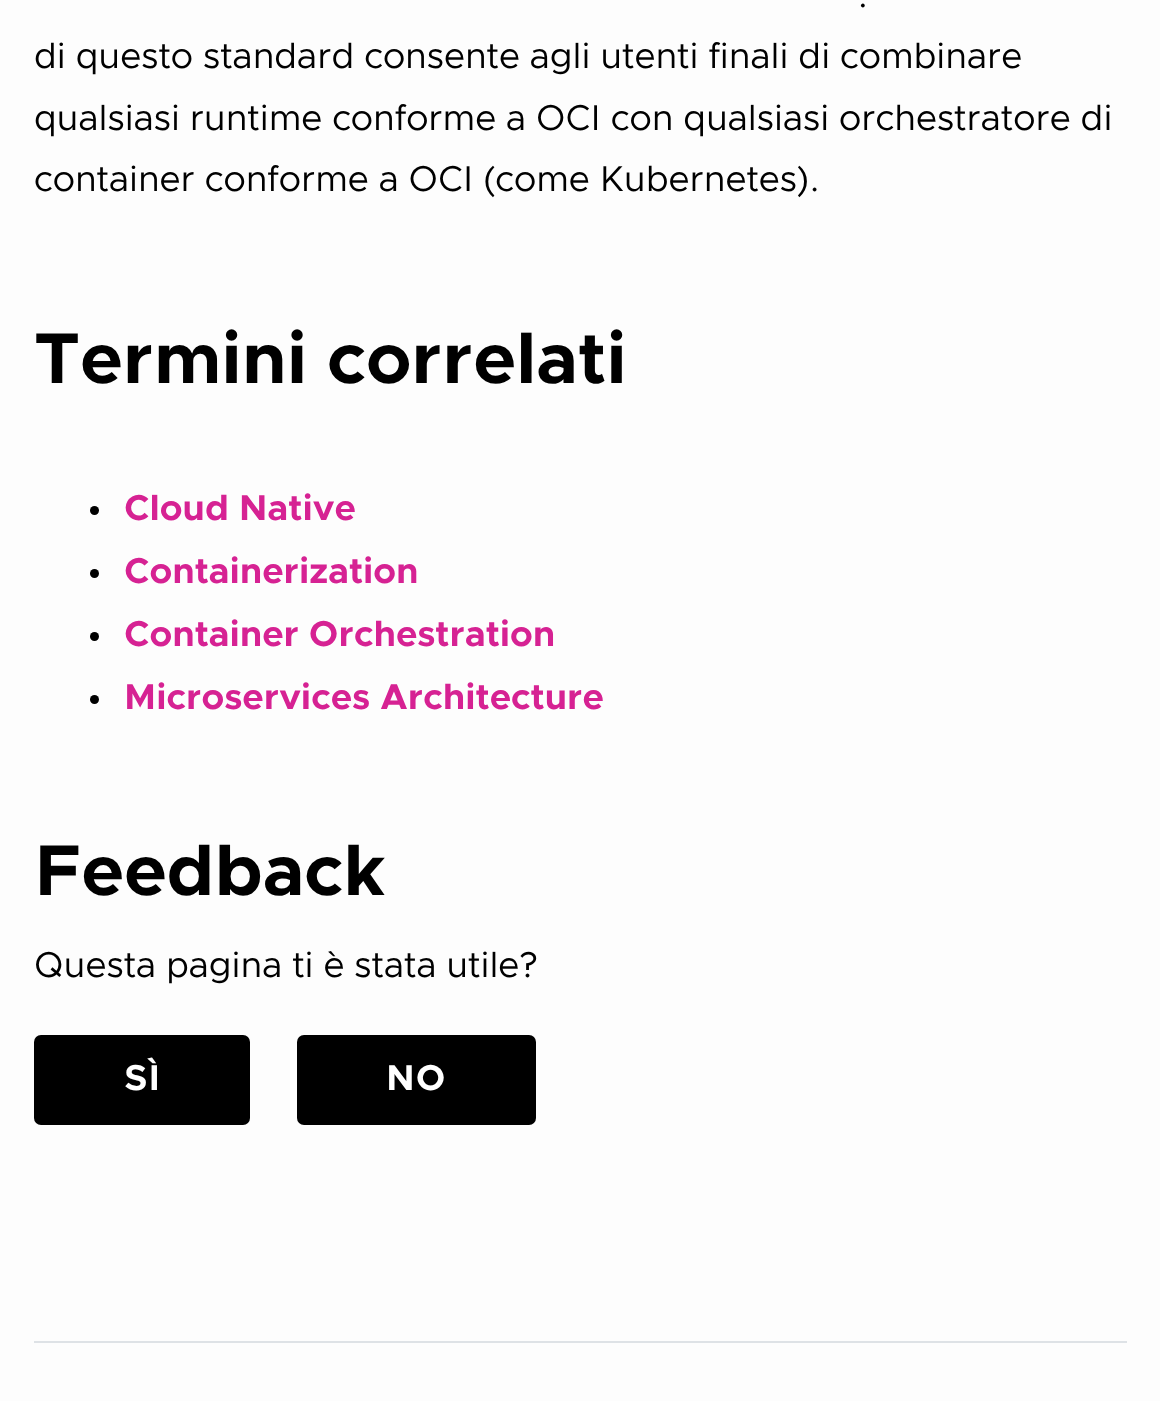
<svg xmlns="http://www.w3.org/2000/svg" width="1160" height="1401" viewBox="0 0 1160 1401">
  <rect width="100%" height="100%" fill="rgb(253,253,253)"/>
  <g font-family="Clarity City" font-size="36" fill="rgb(0,0,0)">
    <text x="857" y="7">.</text>
    <text>
      <tspan x="34" y="68">di questo standard consente agli utenti finali di combinare</tspan>
      <tspan x="34" y="130">qualsiasi runtime conforme a OCI con qualsiasi orchestratore di</tspan>
      <tspan x="34" y="191">container conforme a OCI (come Kubernetes).</tspan>
    </text>
  </g>
  <text x="34" y="383" font-family="Clarity City" font-size="72" font-weight="bold" fill="rgb(0,0,0)">Termini correlati</text>
  <circle cx="94.5" cy="510.5" r="4.5" fill="rgb(0,0,0)"/>
  <text x="124" y="520" font-family="Clarity City" font-size="36" font-weight="bold" fill="rgb(214,34,147)">Cloud Native</text>
  <circle cx="94.5" cy="573.5" r="4.5" fill="rgb(0,0,0)"/>
  <text x="124" y="583" font-family="Clarity City" font-size="36" font-weight="bold" fill="rgb(214,34,147)">Containerization</text>
  <circle cx="94.5" cy="636.5" r="4.5" fill="rgb(0,0,0)"/>
  <text x="124" y="646" font-family="Clarity City" font-size="36" font-weight="bold" fill="rgb(214,34,147)">Container Orchestration</text>
  <circle cx="94.5" cy="699.5" r="4.5" fill="rgb(0,0,0)"/>
  <text x="124" y="709" font-family="Clarity City" font-size="36" font-weight="bold" fill="rgb(214,34,147)">Microservices Architecture</text>
  <text x="34" y="895" font-family="Clarity City" font-size="72" font-weight="bold" fill="rgb(0,0,0)">Feedback</text>
  <text x="34" y="977" font-family="Clarity City" font-size="36" fill="rgb(0,0,0)">Questa pagina ti è stata utile?</text>
  <rect x="34" y="1035" width="216" height="90" rx="7" fill="rgb(0,0,0)"/>
  <text x="124" y="1090" font-family="Clarity City" font-size="36" font-weight="bold" letter-spacing="1" fill="rgb(255,255,255)">SÌ</text>
  <rect x="297" y="1035" width="239" height="90" rx="7" fill="rgb(0,0,0)"/>
  <text x="386" y="1090" font-family="Clarity City" font-size="36" font-weight="bold" letter-spacing="1" fill="rgb(255,255,255)">NO</text>
  <rect x="34" y="1341" width="1093" height="2" fill="rgb(222,226,230)"/>
</svg>
